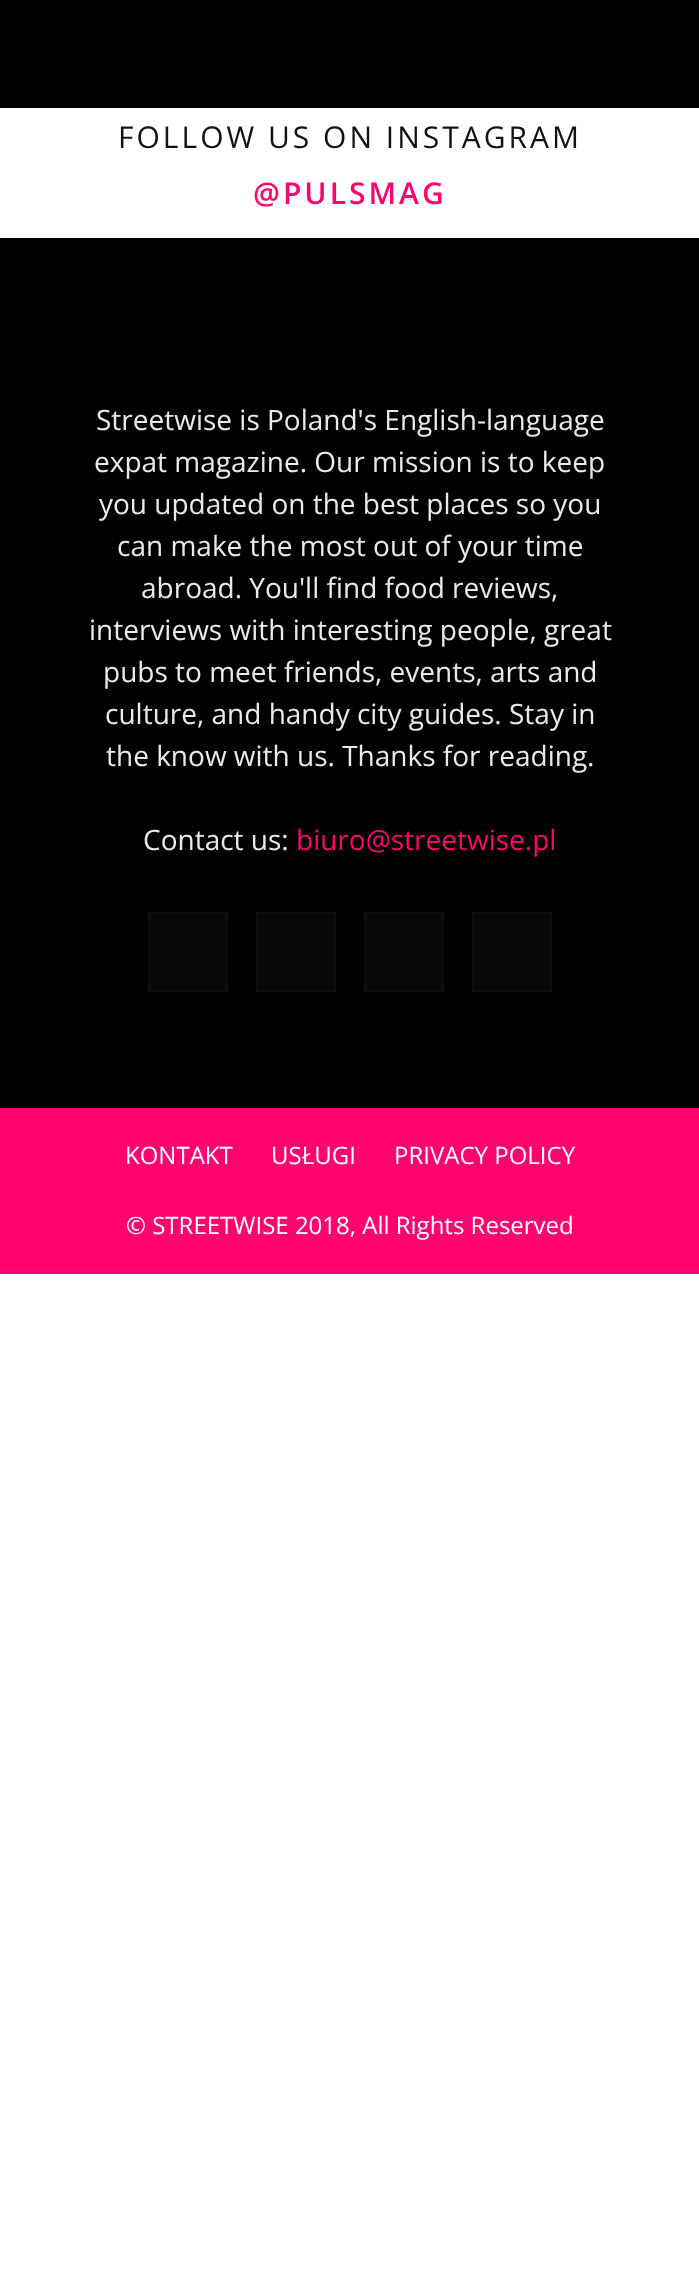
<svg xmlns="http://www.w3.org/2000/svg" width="699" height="2295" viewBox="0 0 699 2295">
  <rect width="100%" height="100%" fill="rgb(255,255,255)"/>
  <rect x="0" y="0" width="699" height="108" fill="rgb(0,0,0)"/>
  <text x="118" y="148" font-family="Open Sans" font-size="30" letter-spacing="3" fill="rgb(17,17,17)">FOLLOW US ON INSTAGRAM</text>
  <text x="253" y="204" font-family="Open Sans" font-size="30" font-weight="600" letter-spacing="3" fill="rgb(255,3,110)">@PULSMAG</text>
  <rect x="0" y="238" width="699" height="870" fill="rgb(0,0,0)"/>
  <g font-family="Open Sans" font-size="28" fill="rgb(234,234,234)">
    <text x="96" y="430">Streetwise is Poland's English-language</text>
    <text x="94" y="472">expat magazine. Our mission is to keep</text>
    <text x="99" y="514">you updated on the best places so you</text>
    <text x="117" y="556">can make the most out of your time</text>
    <text x="141" y="598">abroad. You'll find food reviews,</text>
    <text x="89" y="640">interviews with interesting people, great</text>
    <text x="103" y="682">pubs to meet friends, events, arts and</text>
    <text x="105" y="724">culture, and handy city guides. Stay in</text>
    <text x="106" y="766">the know with us. Thanks for reading.</text>
    <text x="143" y="850">Contact us:</text>
  </g>
  <text x="296" y="850" font-family="Open Sans" font-size="28" fill="rgb(255,3,110)">biuro@streetwise.pl</text>
  <rect x="149" y="913" width="78" height="78" fill="rgb(8,8,8)" stroke="rgb(15,15,15)" stroke-width="2"/>
  <rect x="257" y="913" width="78" height="78" fill="rgb(8,8,8)" stroke="rgb(15,15,15)" stroke-width="2"/>
  <rect x="365" y="913" width="78" height="78" fill="rgb(8,8,8)" stroke="rgb(15,15,15)" stroke-width="2"/>
  <rect x="473" y="913" width="78" height="78" fill="rgb(8,8,8)" stroke="rgb(15,15,15)" stroke-width="2"/>
  <rect x="0" y="1108" width="699" height="166" fill="rgb(255,3,110)"/>
  <g font-family="Open Sans" font-size="24" fill="rgb(255,255,255)">
    <text x="125" y="1164">KONTAKT</text>
    <text x="271" y="1164">USŁUGI</text>
    <text x="394" y="1164">PRIVACY POLICY</text>
    <text x="126" y="1234">© STREETWISE 2018, All Rights Reserved</text>
  </g>
</svg>
